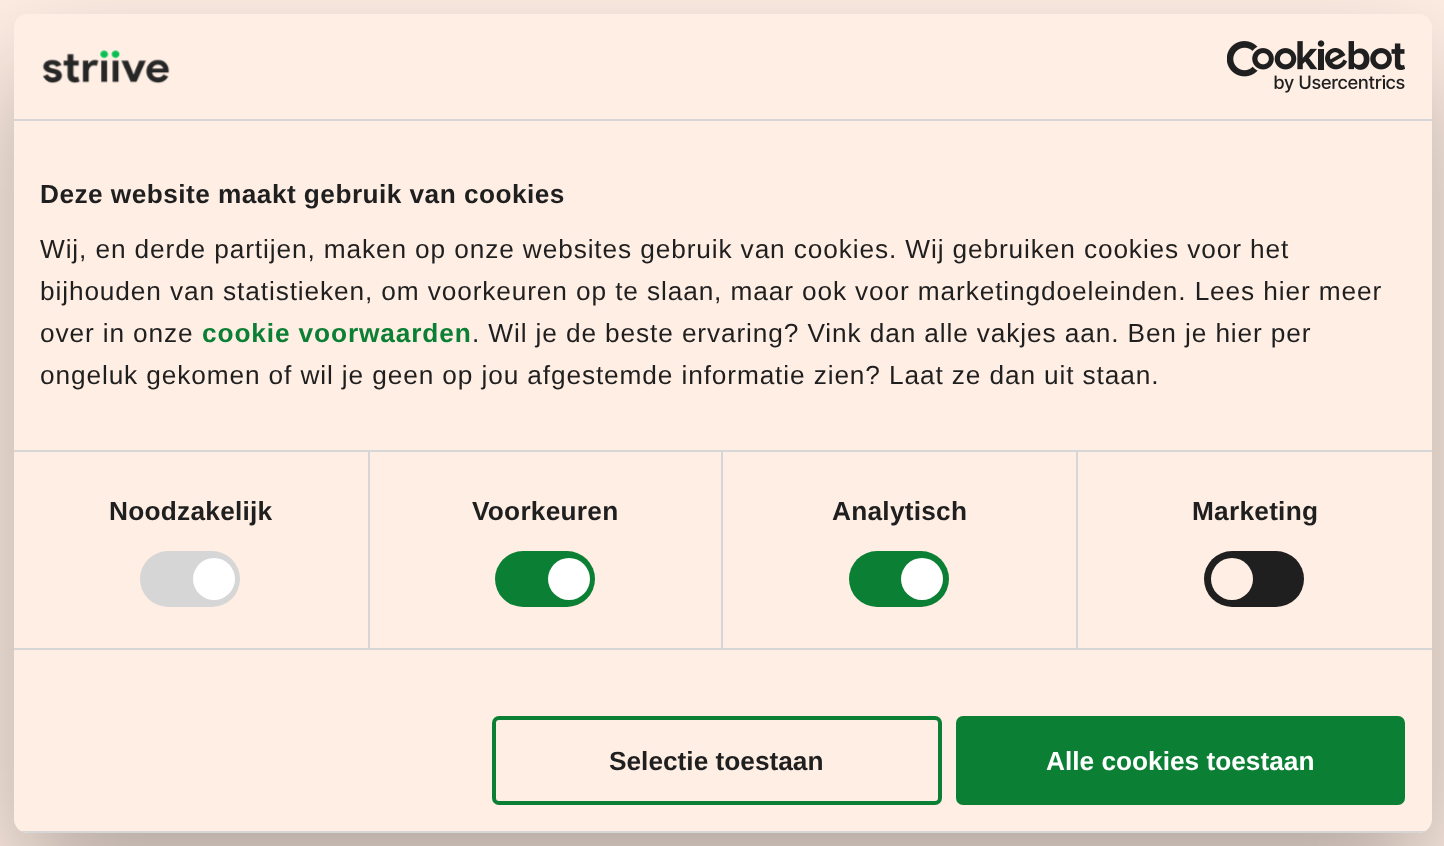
<svg xmlns="http://www.w3.org/2000/svg" width="1444" height="846" viewBox="0 0 1444 846">
  <defs>
    <clipPath id="clip1"><rect x="14" y="14" width="1418" height="819" rx="14"/></clipPath>
  </defs>
  <rect width="100%" height="100%" fill="rgb(255,238,228)"/>
  <rect x="14" y="70" width="1418" height="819" rx="14" fill="rgba(0,0,0,0.3)" filter="blur(59.5px)"/>
  <rect x="14" y="14" width="1418" height="819" rx="14" fill="rgb(255,238,228)"/>
  <rect x="14" y="119" width="1418" height="2" fill="rgb(214,214,214)"/>
  <image x="42" y="50" width="128" height="34" href="pic1.png"/>
  <image x="1227" y="40" width="178" height="53" href="pic2.png"/>
  <rect x="14" y="450" width="1418" height="2" fill="rgb(214,214,214)"/>
  <text x="40" y="203" font-family="Liberation Sans" font-size="26.25" font-weight="bold" letter-spacing="0.45" fill="rgb(31,31,31)">Deze website maakt gebruik van cookies</text>
  <g font-family="Liberation Sans" font-size="26.25" letter-spacing="0.88" fill="rgb(31,31,31)">
    <text>
      <tspan x="40" y="258">Wij, en derde partijen, maken op onze websites gebruik van cookies. Wij gebruiken cookies voor het</tspan>
      <tspan x="40" y="300">bijhouden van statistieken, om voorkeuren op te slaan, maar ook voor marketingdoeleinden. Lees hier meer</tspan>
      <tspan x="40" y="342">over in onze</tspan>
    </text>
  </g>
  <text x="202" y="342" font-family="Liberation Sans" font-size="26.25" font-weight="bold" letter-spacing="0.88" fill="rgb(11,127,52)">cookie voorwaarden</text>
  <g font-family="Liberation Sans" font-size="26.25" letter-spacing="0.88" fill="rgb(31,31,31)">
    <text x="472" y="342">. Wil je de beste ervaring? Vink dan alle vakjes aan. Ben je hier per</text>
    <text x="40" y="384">ongeluk gekomen of wil je geen op jou afgestemde informatie zien? Laat ze dan uit staan.</text>
  </g>
  <rect x="14" y="648" width="1418" height="2" fill="rgb(214,214,214)"/>
  <rect x="368" y="452" width="2" height="196" fill="rgb(214,214,214)"/>
  <text x="109" y="520" font-family="Liberation Sans" font-size="26.25" font-weight="bold" letter-spacing="0.25" fill="rgb(31,31,31)">Noodzakelijk</text>
  <rect x="140" y="551" width="100" height="56" rx="28" fill="rgb(214,214,214)"/>
  <circle cx="214" cy="579" r="21" fill="rgb(255,255,255)"/>
  <rect x="721" y="452" width="2" height="196" fill="rgb(214,214,214)"/>
  <text x="472" y="520" font-family="Liberation Sans" font-size="26.25" font-weight="bold" letter-spacing="0.25" fill="rgb(31,31,31)">Voorkeuren</text>
  <rect x="495" y="551" width="100" height="56" rx="28" fill="rgb(11,127,52)"/>
  <circle cx="569" cy="579" r="21" fill="rgb(255,255,255)"/>
  <rect x="1076" y="452" width="2" height="196" fill="rgb(214,214,214)"/>
  <text x="832" y="520" font-family="Liberation Sans" font-size="26.25" font-weight="bold" letter-spacing="0.25" fill="rgb(31,31,31)">Analytisch</text>
  <rect x="849" y="551" width="100" height="56" rx="28" fill="rgb(11,127,52)"/>
  <circle cx="922" cy="579" r="21" fill="rgb(255,255,255)"/>
  <text x="1192" y="520" font-family="Liberation Sans" font-size="26.25" font-weight="bold" letter-spacing="0.25" fill="rgb(31,31,31)">Marketing</text>
  <rect x="1204" y="551" width="100" height="56" rx="28" fill="rgb(31,31,31)"/>
  <circle cx="1232" cy="579" r="21" fill="rgb(255,238,228)"/>
  <g clip-path="url(#clip1)">
    <rect x="14" y="831" width="1418" height="2" fill="rgb(214,214,214)"/>
  </g>
  <rect x="494" y="718" width="446" height="85" rx="5" fill="none" stroke="rgb(11,127,52)" stroke-width="4"/>
  <text x="609" y="770" font-family="Liberation Sans" font-size="26.25" font-weight="bold" fill="rgb(31,31,31)">Selectie toestaan</text>
  <rect x="958" y="718" width="445" height="85" rx="5" fill="rgb(11,127,52)" stroke="rgb(11,127,52)" stroke-width="4"/>
  <text x="1046" y="770" font-family="Liberation Sans" font-size="26.25" font-weight="bold" fill="rgb(255,255,255)">Alle cookies toestaan</text>
</svg>
